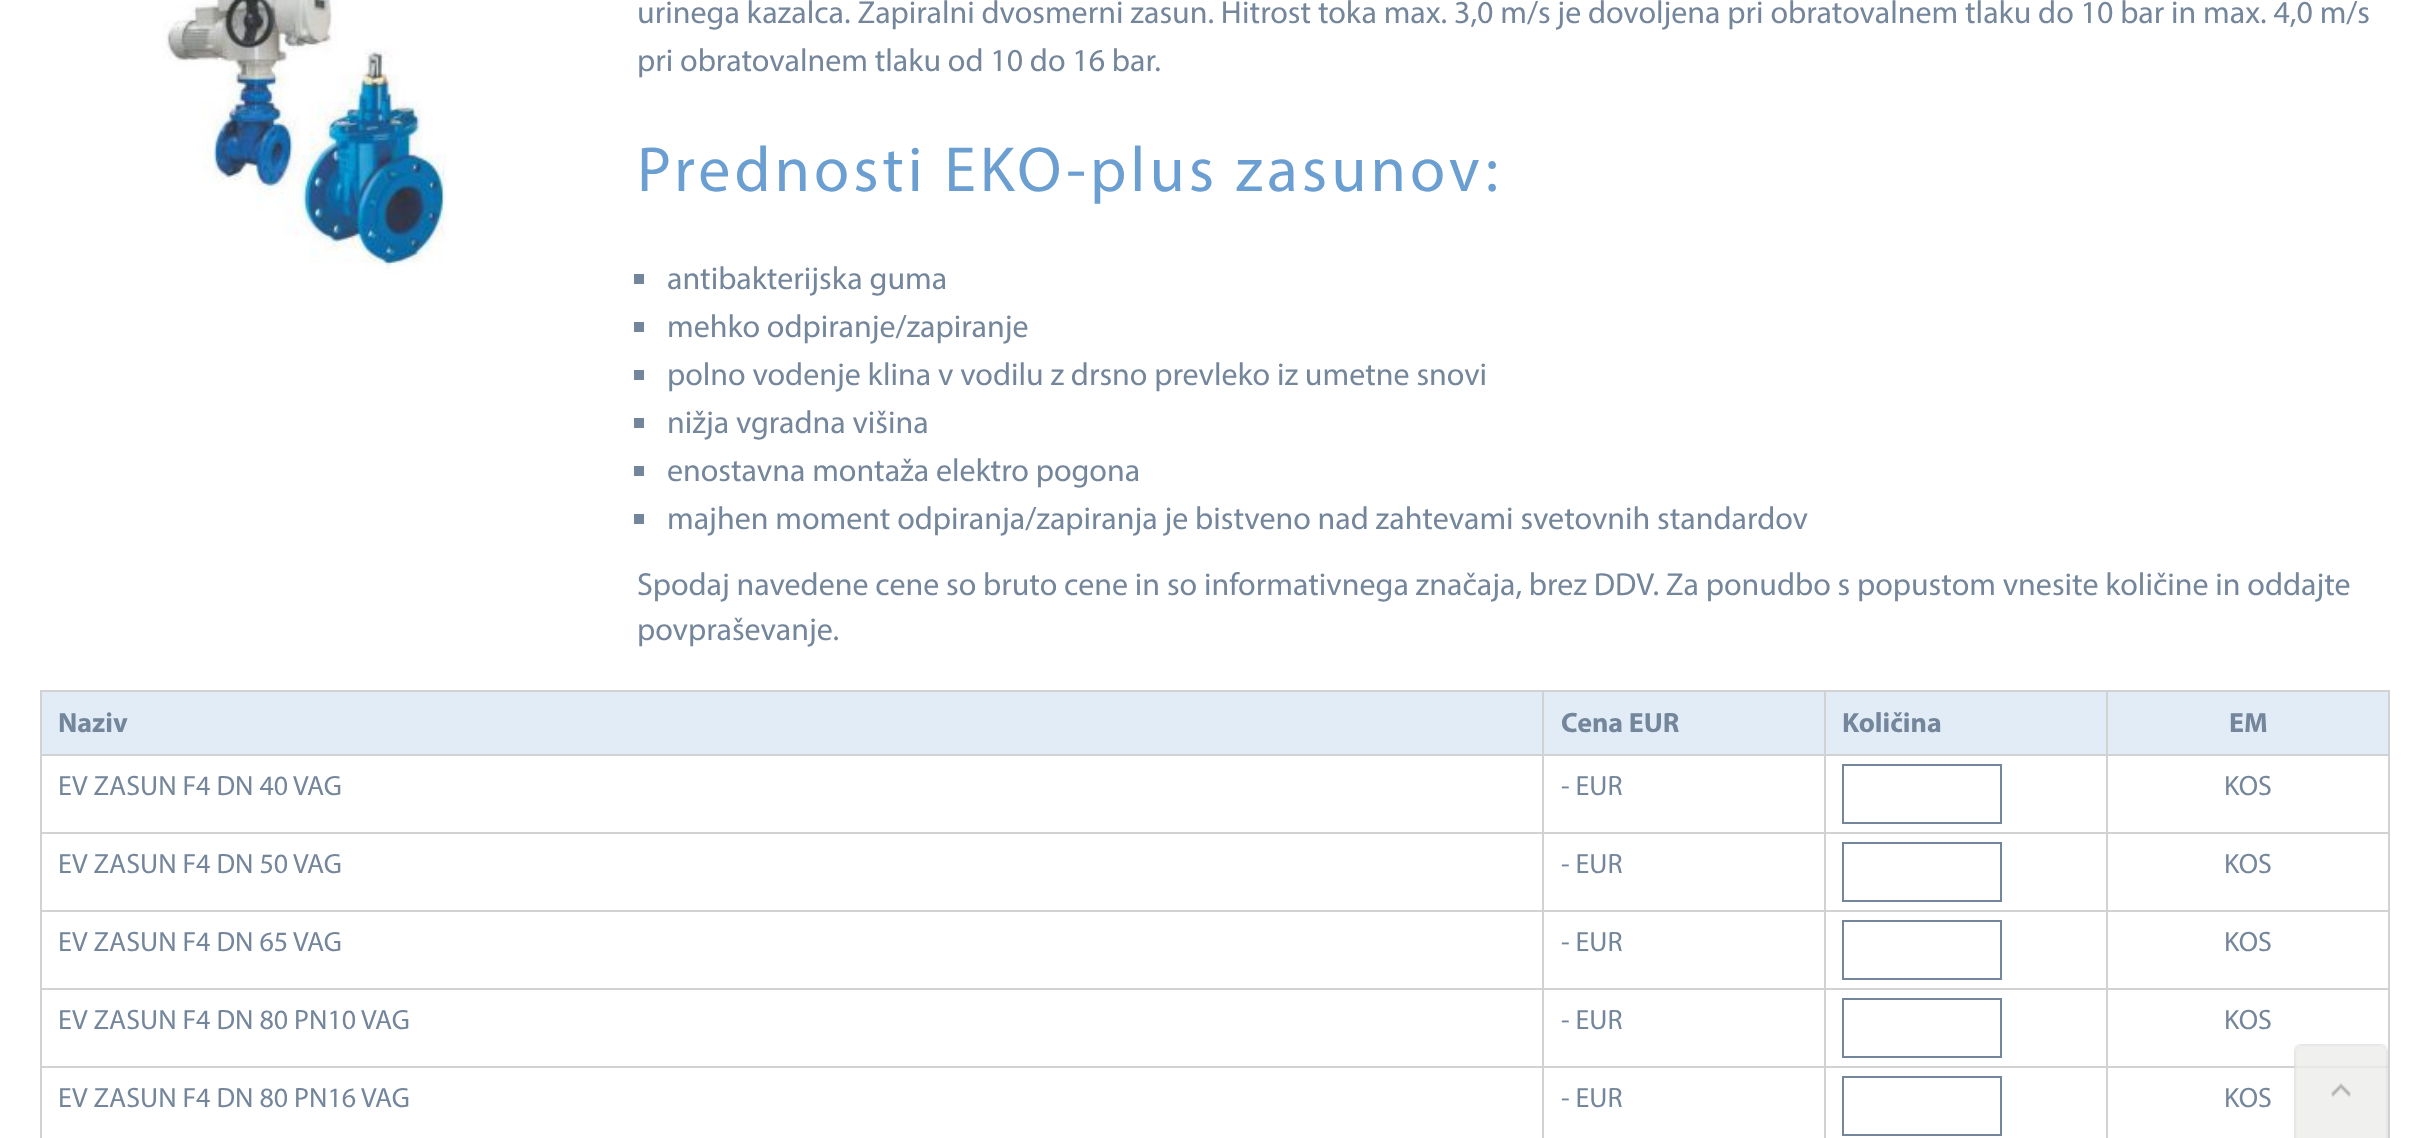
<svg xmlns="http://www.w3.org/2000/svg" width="2428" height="1138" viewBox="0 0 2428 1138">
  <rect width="100%" height="100%" fill="rgb(255,255,255)"/>
  <image x="162" y="0" width="285" height="274" href="pic1.png"/>
  <g font-family="Myriad" font-size="32" fill="rgb(116,134,155)">
    <text>
      <tspan x="637" y="23">urinega kazalca. Zapiralni dvosmerni zasun. Hitrost toka max. 3,0 m/s je dovoljena pri obratovalnem tlaku do 10 bar in max. 4,0 m/s</tspan>
      <tspan x="637" y="71">pri obratovalnem tlaku od 10 do 16 bar.</tspan>
    </text>
  </g>
  <text x="637" y="191" font-family="Myriad" font-size="64" letter-spacing="4" fill="rgb(107,159,209)">Prednosti EKO-plus zasunov:</text>
  <rect x="634" y="274" width="10" height="10" fill="rgb(116,134,155)"/>
  <text x="667" y="289" font-family="Myriad" font-size="32" fill="rgb(116,134,155)">antibakterijska guma</text>
  <rect x="634" y="322" width="10" height="10" fill="rgb(116,134,155)"/>
  <text x="667" y="337" font-family="Myriad" font-size="32" fill="rgb(116,134,155)">mehko odpiranje/zapiranje</text>
  <rect x="634" y="370" width="10" height="10" fill="rgb(116,134,155)"/>
  <text x="667" y="385" font-family="Myriad" font-size="32" fill="rgb(116,134,155)">polno vodenje klina v vodilu z drsno prevleko iz umetne snovi</text>
  <rect x="634" y="418" width="10" height="10" fill="rgb(116,134,155)"/>
  <text x="667" y="433" font-family="Myriad" font-size="32" fill="rgb(116,134,155)">nižja vgradna višina</text>
  <rect x="634" y="466" width="10" height="10" fill="rgb(116,134,155)"/>
  <text x="667" y="481" font-family="Myriad" font-size="32" fill="rgb(116,134,155)">enostavna montaža elektro pogona</text>
  <rect x="634" y="514" width="10" height="10" fill="rgb(116,134,155)"/>
  <g font-family="Myriad" font-size="32" fill="rgb(116,134,155)">
    <text x="667" y="529">majhen moment odpiranja/zapiranja je bistveno nad zahtevami svetovnih standardov</text>
    <text>
      <tspan x="637" y="595">Spodaj navedene cene so bruto cene in so informativnega značaja, brez DDV. Za ponudbo s popustom vnesite količine in oddajte</tspan>
      <tspan x="637" y="640">povpraševanje.</tspan>
    </text>
  </g>
  <rect x="40" y="690" width="2350" height="2" fill="rgb(210,210,210)"/>
  <rect x="2388" y="690" width="2" height="448" fill="rgb(210,210,210)"/>
  <rect x="40" y="690" width="2" height="448" fill="rgb(210,210,210)"/>
  <rect x="42" y="692" width="2346" height="62" fill="rgb(226,236,246)"/>
  <text x="58" y="732" font-family="Myriad" font-size="28" font-weight="bold" fill="rgb(116,134,155)">Naziv</text>
  <rect x="2106" y="754" width="284" height="2" fill="rgb(210,210,210)"/>
  <rect x="2106" y="832" width="284" height="2" fill="rgb(210,210,210)"/>
  <rect x="2106" y="910" width="284" height="2" fill="rgb(210,210,210)"/>
  <rect x="2106" y="988" width="284" height="2" fill="rgb(210,210,210)"/>
  <rect x="2106" y="1066" width="284" height="2" fill="rgb(210,210,210)"/>
  <rect x="2106" y="1066" width="2" height="72" fill="rgb(210,210,210)"/>
  <rect x="1824" y="1066" width="284" height="2" fill="rgb(210,210,210)"/>
  <rect x="2106" y="988" width="2" height="80" fill="rgb(210,210,210)"/>
  <rect x="1824" y="988" width="284" height="2" fill="rgb(210,210,210)"/>
  <rect x="2106" y="910" width="2" height="80" fill="rgb(210,210,210)"/>
  <rect x="1824" y="910" width="284" height="2" fill="rgb(210,210,210)"/>
  <rect x="2106" y="832" width="2" height="80" fill="rgb(210,210,210)"/>
  <rect x="1824" y="832" width="284" height="2" fill="rgb(210,210,210)"/>
  <rect x="2106" y="754" width="2" height="80" fill="rgb(210,210,210)"/>
  <rect x="1824" y="754" width="284" height="2" fill="rgb(210,210,210)"/>
  <rect x="1824" y="1066" width="2" height="72" fill="rgb(210,210,210)"/>
  <rect x="1542" y="1066" width="284" height="2" fill="rgb(210,210,210)"/>
  <rect x="1824" y="988" width="2" height="80" fill="rgb(210,210,210)"/>
  <rect x="1542" y="988" width="284" height="2" fill="rgb(210,210,210)"/>
  <rect x="1824" y="910" width="2" height="80" fill="rgb(210,210,210)"/>
  <rect x="1542" y="910" width="284" height="2" fill="rgb(210,210,210)"/>
  <rect x="1824" y="832" width="2" height="80" fill="rgb(210,210,210)"/>
  <rect x="1542" y="832" width="284" height="2" fill="rgb(210,210,210)"/>
  <rect x="1824" y="754" width="2" height="80" fill="rgb(210,210,210)"/>
  <rect x="1542" y="754" width="284" height="2" fill="rgb(210,210,210)"/>
  <rect x="1542" y="1066" width="2" height="72" fill="rgb(210,210,210)"/>
  <rect x="40" y="1066" width="1504" height="2" fill="rgb(210,210,210)"/>
  <rect x="1542" y="988" width="2" height="80" fill="rgb(210,210,210)"/>
  <rect x="40" y="988" width="1504" height="2" fill="rgb(210,210,210)"/>
  <rect x="1542" y="910" width="2" height="80" fill="rgb(210,210,210)"/>
  <rect x="40" y="910" width="1504" height="2" fill="rgb(210,210,210)"/>
  <rect x="1542" y="832" width="2" height="80" fill="rgb(210,210,210)"/>
  <rect x="40" y="832" width="1504" height="2" fill="rgb(210,210,210)"/>
  <rect x="1542" y="754" width="2" height="80" fill="rgb(210,210,210)"/>
  <rect x="40" y="754" width="1504" height="2" fill="rgb(210,210,210)"/>
  <rect x="1542" y="690" width="2" height="66" fill="rgb(210,210,210)"/>
  <text x="1561" y="732" font-family="Myriad" font-size="28" font-weight="bold" fill="rgb(116,134,155)">Cena EUR</text>
  <rect x="1824" y="690" width="2" height="66" fill="rgb(210,210,210)"/>
  <text x="1842" y="732" font-family="Myriad" font-size="28" font-weight="bold" fill="rgb(116,134,155)">Količina</text>
  <rect x="2106" y="690" width="2" height="66" fill="rgb(210,210,210)"/>
  <text x="2229" y="732" font-family="Myriad" font-size="28" font-weight="bold" fill="rgb(116,134,155)">EM</text>
  <g font-family="Myriad" font-size="28" fill="rgb(116,134,155)">
    <text x="58" y="795">EV ZASUN F4 DN 40 VAG</text>
    <text x="1561" y="795">- EUR</text>
  </g>
  <rect x="1843" y="765" width="158" height="58" fill="none" stroke="rgb(116,134,155)" stroke-width="2"/>
  <g font-family="Myriad" font-size="28" fill="rgb(116,134,155)">
    <text x="2224" y="795">KOS</text>
    <text x="58" y="873">EV ZASUN F4 DN 50 VAG</text>
    <text x="1561" y="873">- EUR</text>
  </g>
  <rect x="1843" y="843" width="158" height="58" fill="none" stroke="rgb(116,134,155)" stroke-width="2"/>
  <g font-family="Myriad" font-size="28" fill="rgb(116,134,155)">
    <text x="2224" y="873">KOS</text>
    <text x="58" y="951">EV ZASUN F4 DN 65 VAG</text>
    <text x="1561" y="951">- EUR</text>
  </g>
  <rect x="1843" y="921" width="158" height="58" fill="none" stroke="rgb(116,134,155)" stroke-width="2"/>
  <g font-family="Myriad" font-size="28" fill="rgb(116,134,155)">
    <text x="2224" y="951">KOS</text>
    <text x="58" y="1029">EV ZASUN F4 DN 80 PN10 VAG</text>
    <text x="1561" y="1029">- EUR</text>
  </g>
  <rect x="1843" y="999" width="158" height="58" fill="none" stroke="rgb(116,134,155)" stroke-width="2"/>
  <g font-family="Myriad" font-size="28" fill="rgb(116,134,155)">
    <text x="2224" y="1029">KOS</text>
    <text x="58" y="1107">EV ZASUN F4 DN 80 PN16 VAG</text>
    <text x="1561" y="1107">- EUR</text>
  </g>
  <rect x="1843" y="1077" width="158" height="58" fill="none" stroke="rgb(116,134,155)" stroke-width="2"/>
  <text x="2224" y="1107" font-family="Myriad" font-size="28" fill="rgb(116,134,155)">KOS</text>
  <image x="2294" y="1044" width="94" height="94" href="pic2.png"/>
</svg>
